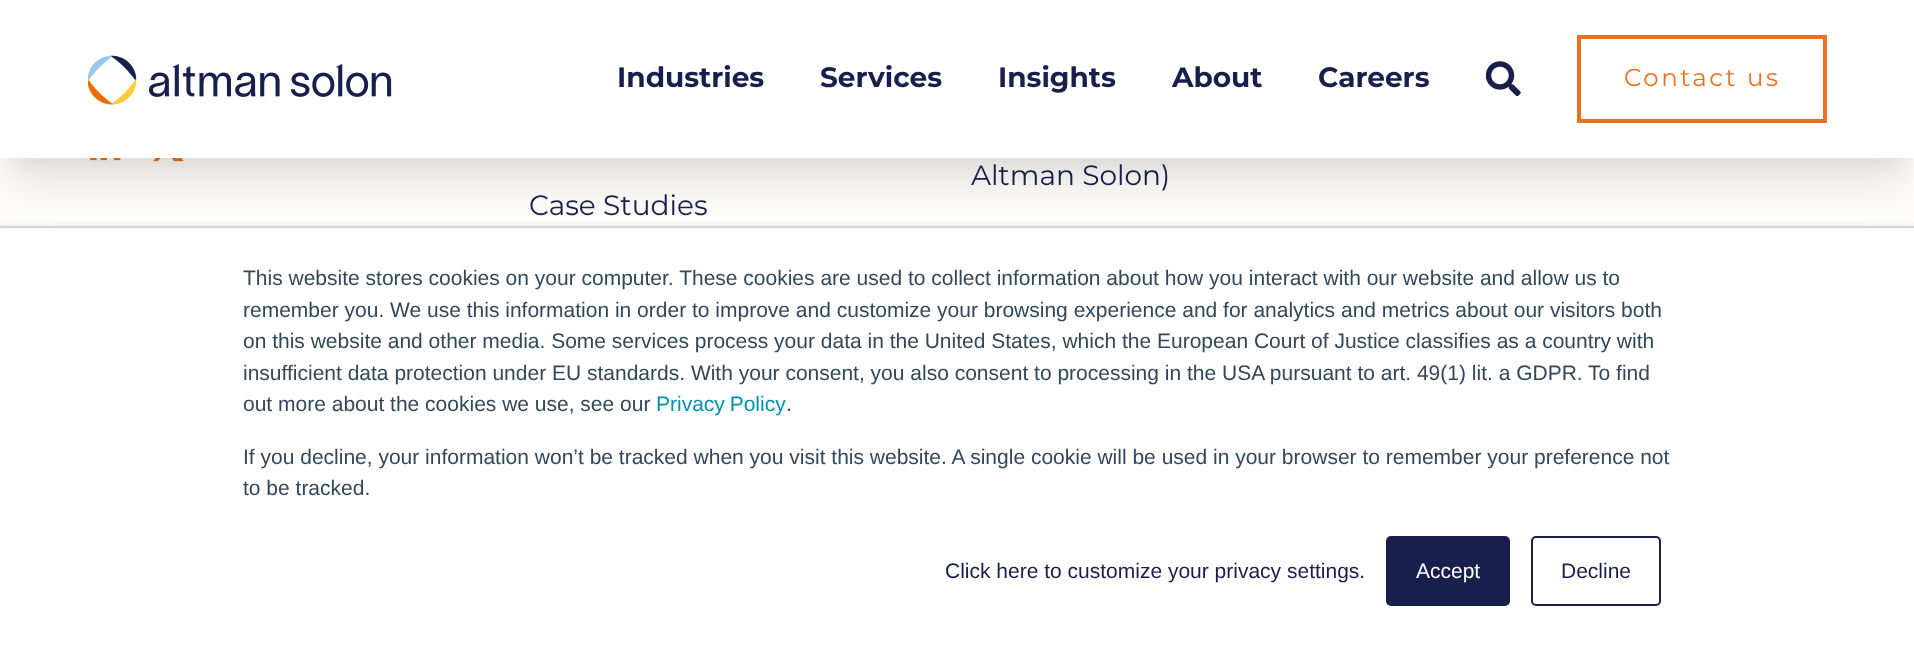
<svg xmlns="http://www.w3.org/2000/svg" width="1914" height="650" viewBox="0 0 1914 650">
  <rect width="100%" height="100%" fill="rgb(255,253,249)"/>
  <image x="90" y="158" width="31" height="3" href="pic3.png"/>
  <image x="153" y="158" width="31" height="4" href="pic4.png"/>
  <rect x="9" y="26" width="1897" height="140" fill="rgba(0,0,0,0.04)" filter="blur(9px)"/>
  <rect x="9" y="44" width="1897" height="140" fill="rgba(0,0,0,0.1)" filter="blur(22px)"/>
  <rect x="0" y="0" width="1914" height="158" fill="rgb(255,255,255)"/>
  <image x="88" y="55" width="304" height="50" href="pic1.png"/>
  <g font-family="Montserrat" font-size="28" font-weight="bold" fill="rgb(24,31,77)">
    <text x="617" y="87">Industries</text>
    <text x="820" y="87">Services</text>
    <text x="998" y="87">Insights</text>
    <text x="1172" y="87">About</text>
    <text x="1318" y="87">Careers</text>
  </g>
  <image x="1486" y="61" width="35" height="35" href="pic2.png"/>
  <rect x="1579" y="37" width="246" height="84" fill="none" stroke="rgb(232,114,36)" stroke-width="4"/>
  <text x="1624" y="86" font-family="Montserrat" font-size="24.5" letter-spacing="2.5" fill="rgb(232,114,36)">Contact us</text>
  <g font-family="Montserrat" font-size="28" fill="rgb(24,31,77)">
    <text x="971" y="185">Altman Solon)</text>
    <text x="529" y="215">Case Studies</text>
  </g>
  <rect x="0" y="224" width="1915" height="425" fill="rgb(234,240,246)" filter="blur(2.5px)"/>
  <rect x="0" y="228" width="1914" height="422" fill="rgb(255,255,255)"/>
  <rect x="0" y="226" width="1914" height="2" fill="rgb(203,214,226)"/>
  <g font-family="Liberation Sans" font-size="21" fill="rgb(51,71,91)">
    <text>
      <tspan x="243" y="285">This website stores cookies on your computer. These cookies are used to collect information about how you interact with our website and allow us to</tspan>
      <tspan x="243" y="317">remember you. We use this information in order to improve and customize your browsing experience and for analytics and metrics about our visitors both</tspan>
      <tspan x="243" y="348">on this website and other media. Some services process your data in the United States, which the European Court of Justice classifies as a country with</tspan>
      <tspan x="243" y="380">insufficient data protection under EU standards. With your consent, you also consent to processing in the USA pursuant to art. 49(1) lit. a GDPR. To find</tspan>
      <tspan x="243" y="411">out more about the cookies we use, see our</tspan>
    </text>
  </g>
  <text x="656" y="411" word-spacing="-1" font-family="Liberation Sans" font-size="21" fill="rgb(0,145,174)">Privacy Policy</text>
  <g font-family="Liberation Sans" font-size="21" fill="rgb(51,71,91)">
    <text x="786" y="411">.</text>
    <text>
      <tspan x="243" y="464">If you decline, your information won’t be tracked when you visit this website. A single cookie will be used in your browser to remember your preference not</tspan>
      <tspan x="243" y="495">to be tracked.</tspan>
    </text>
  </g>
  <text x="945" y="578" font-family="Liberation Sans" font-size="21" fill="rgb(24,31,77)">Click here to customize your privacy settings.</text>
  <rect x="1387" y="537" width="122" height="68" rx="4" fill="rgb(24,31,77)" stroke="rgb(24,31,77)" stroke-width="2"/>
  <text x="1416" y="578" font-family="Liberation Sans" font-size="21" fill="rgb(255,255,255)">Accept</text>
  <rect x="1532" y="537" width="128" height="68" rx="4" fill="none" stroke="rgb(24,31,77)" stroke-width="2"/>
  <text x="1561" y="578" font-family="Liberation Sans" font-size="21" fill="rgb(24,31,77)">Decline</text>
</svg>
